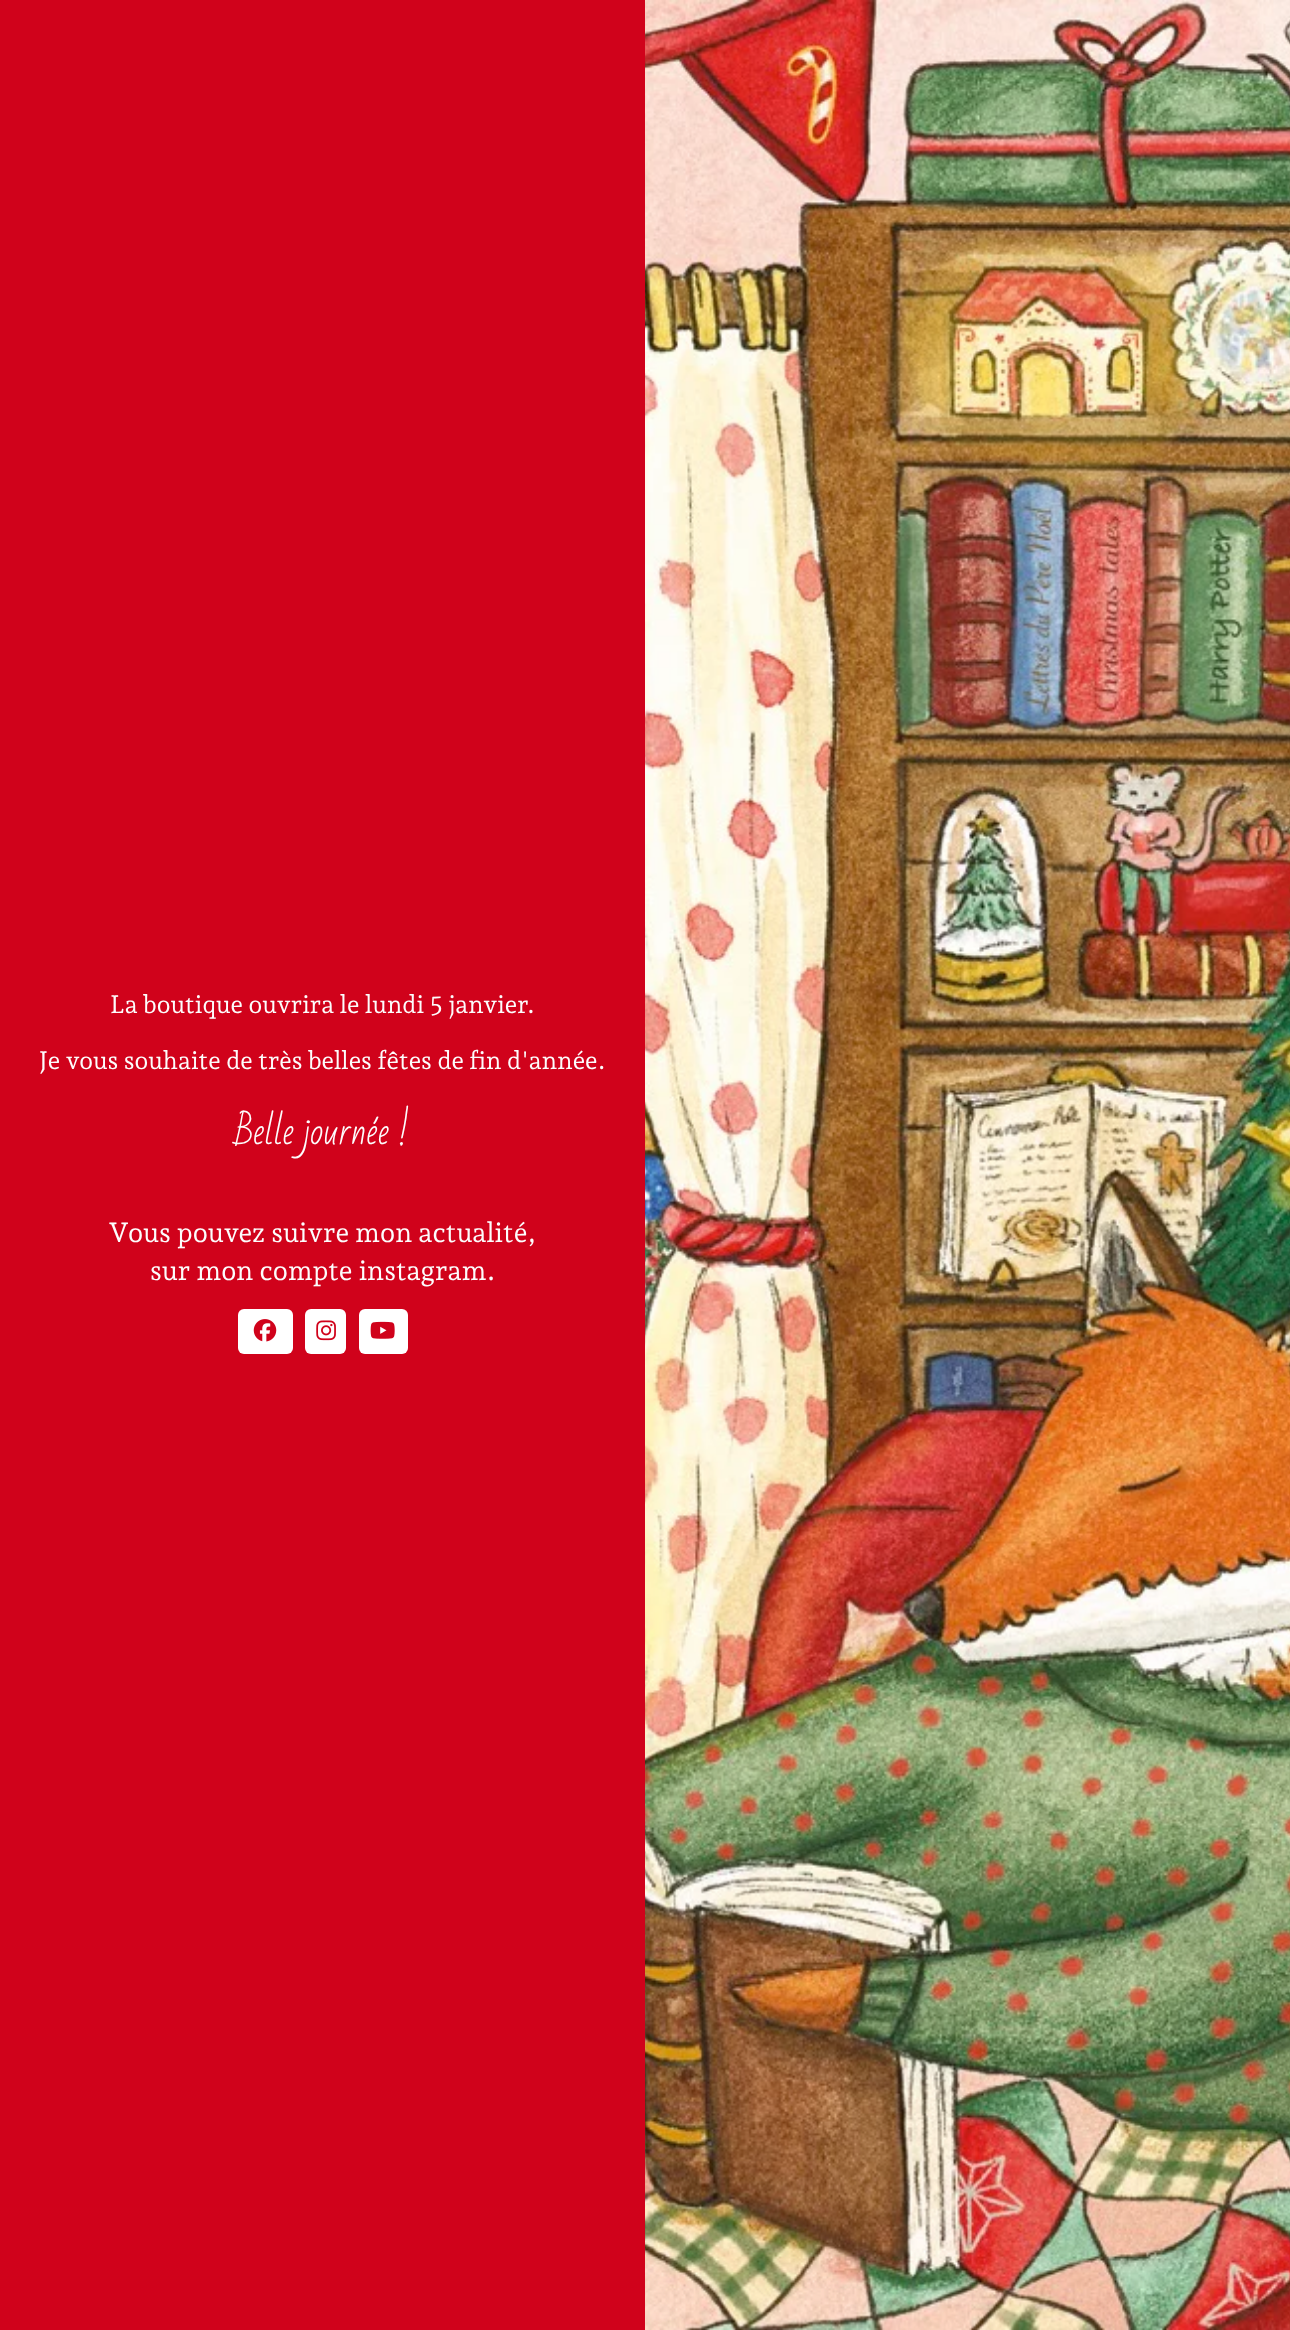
<svg xmlns="http://www.w3.org/2000/svg" width="1290" height="2330" viewBox="0 0 1290 2330">
  <rect width="100%" height="100%" fill="rgb(208,2,27)"/>
  <g font-family="Andada Pro" font-size="25" fill="rgb(253,253,253)">
    <text x="110" y="1013">La boutique ouvrira le lundi 5 janvier.</text>
    <text x="39" y="1069">Je vous souhaite de très belles fêtes de fin d'année.</text>
  </g>
  <text x="235" y="1144" font-family="Bad Script" font-size="35" fill="rgb(253,253,253)">Belle journée !</text>
  <g font-family="Andada Pro" font-size="27.5" fill="rgb(253,253,253)">
    <text x="108" y="1242">Vous pouvez suivre mon actualité,</text>
    <text x="150" y="1280">sur mon compte instagram.</text>
  </g>
  <rect x="238" y="1309" width="55" height="45" rx="6" fill="rgb(255,255,255)"/>
  <image x="253" y="1319" width="24" height="23" href="pic1.png"/>
  <rect x="305" y="1309" width="41" height="45" rx="6" fill="rgb(255,255,255)"/>
  <image x="316" y="1320" width="20" height="21" href="pic2.png"/>
  <rect x="359" y="1309" width="49" height="45" rx="6" fill="rgb(255,255,255)"/>
  <image x="370" y="1321" width="25" height="18" href="pic3.png"/>
  <image x="645" y="0" width="645" height="2330" href="pic4.png"/>
</svg>
